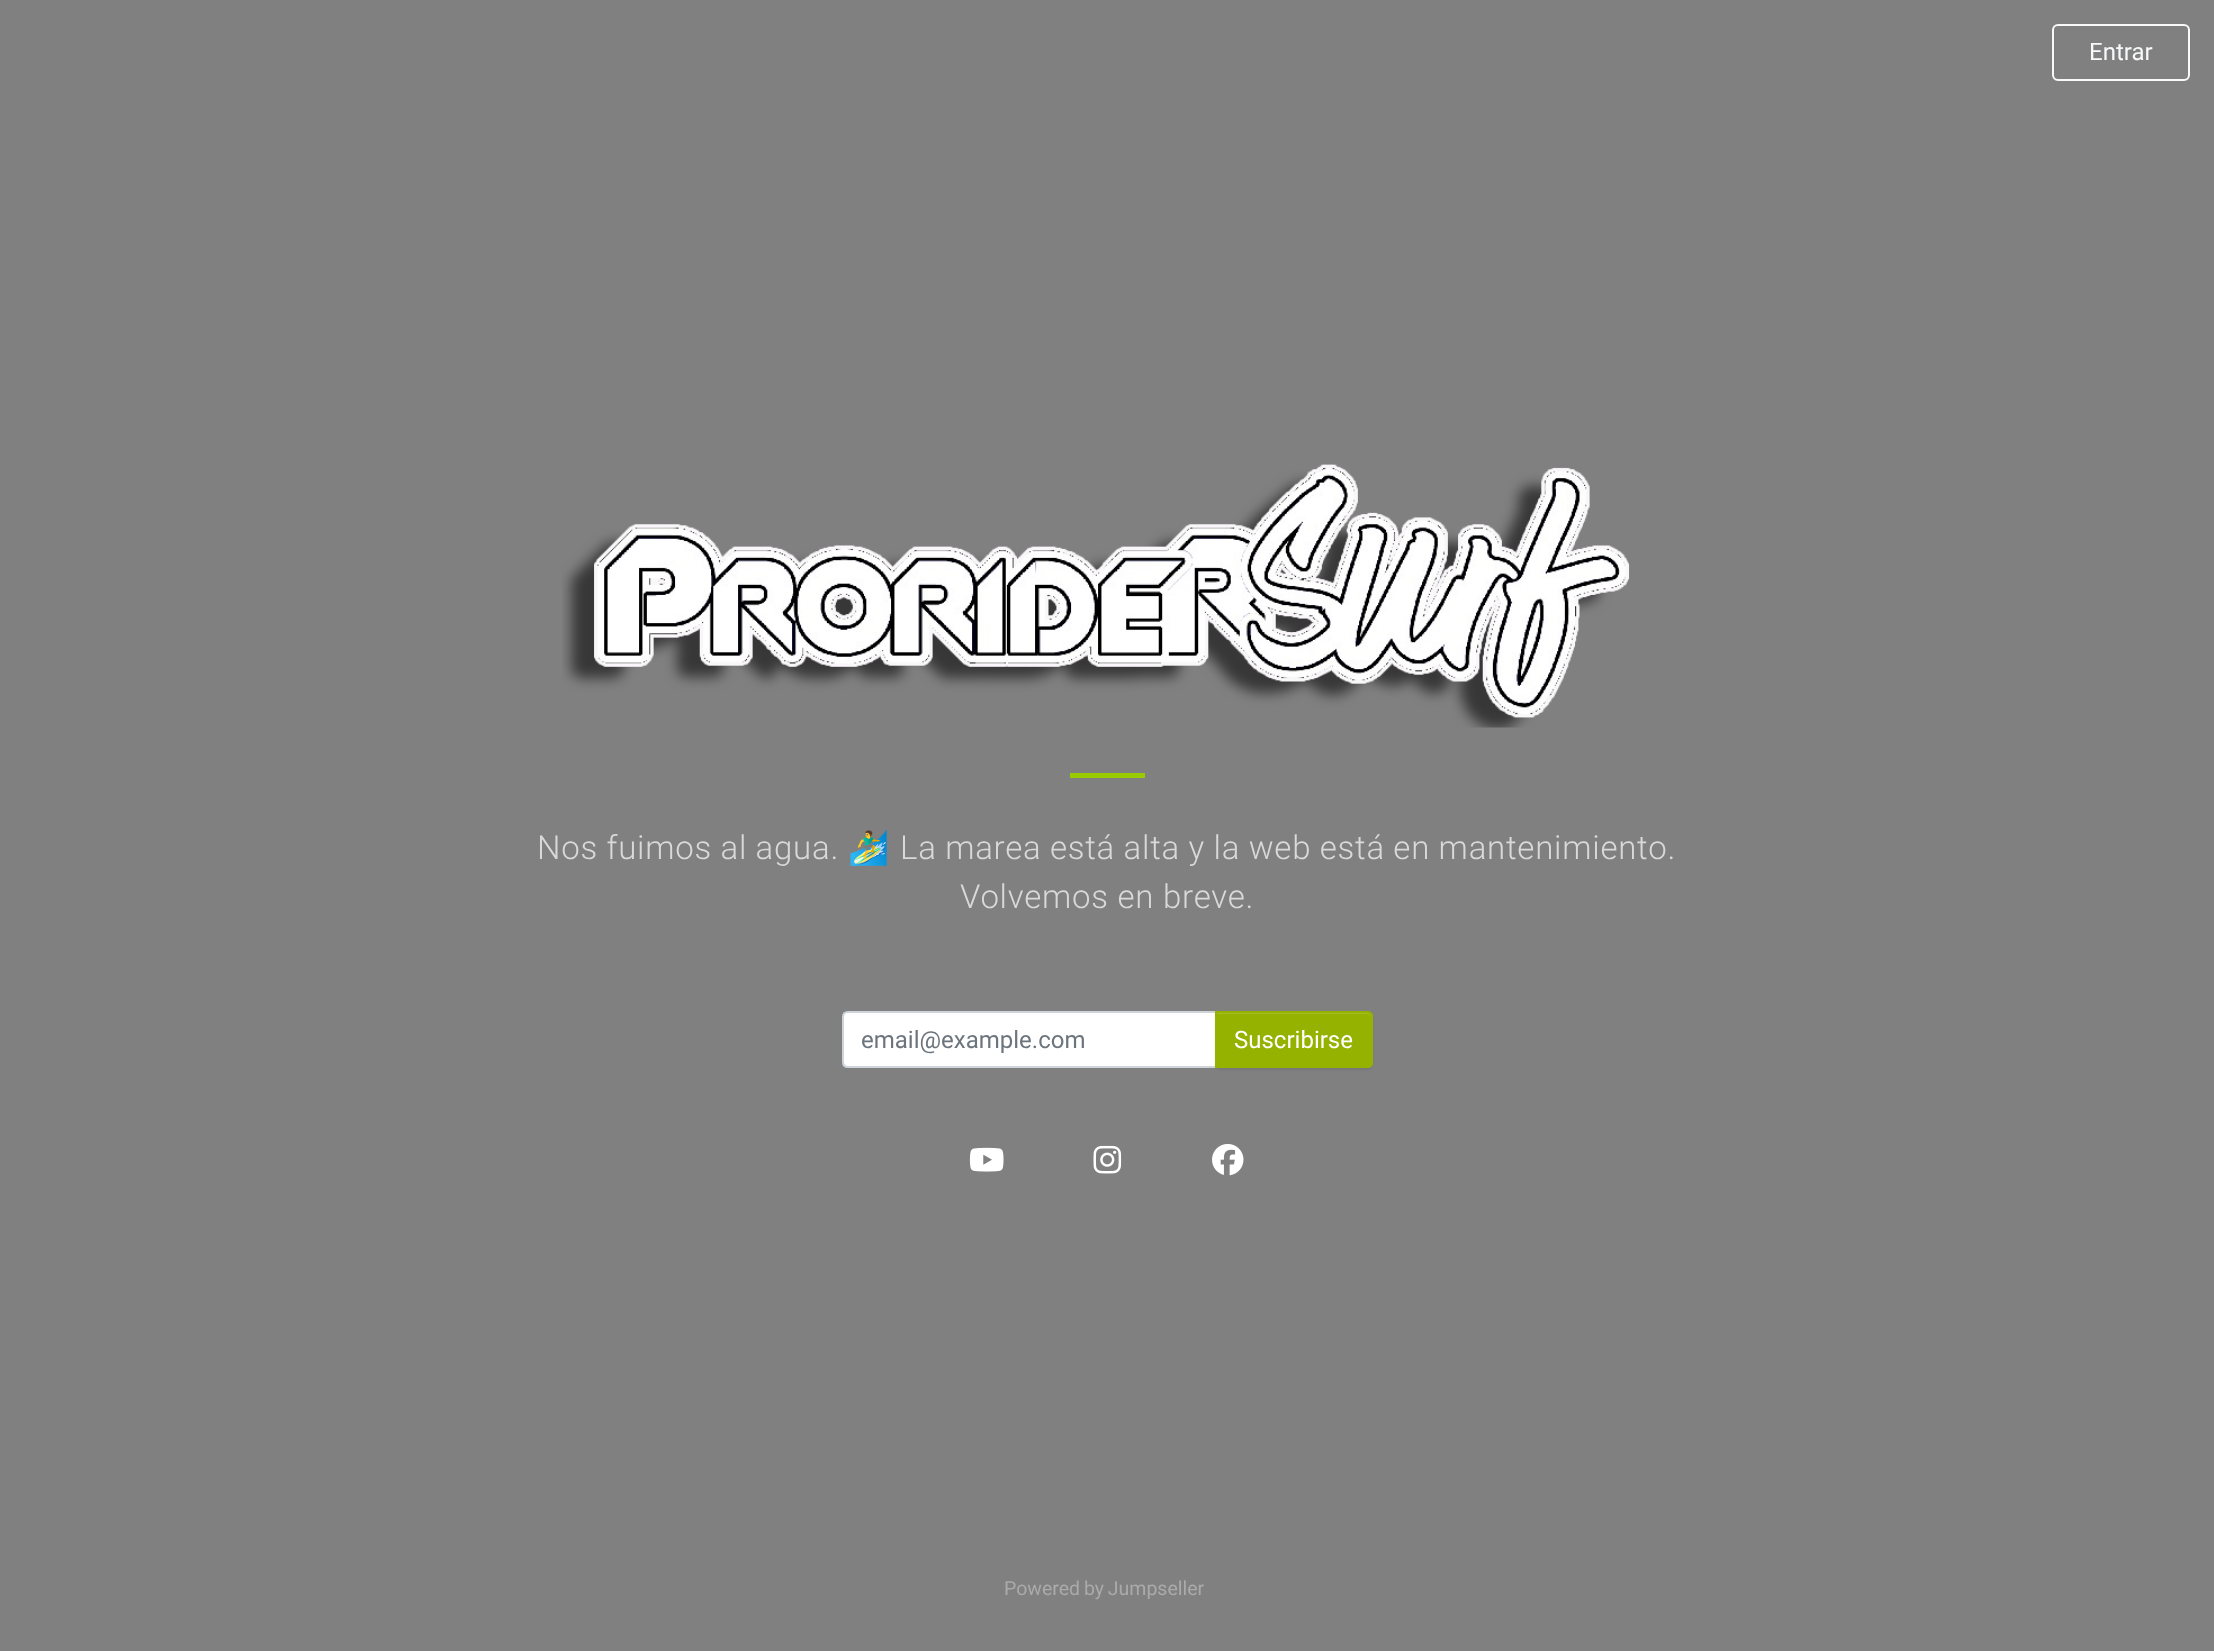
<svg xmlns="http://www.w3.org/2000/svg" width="2214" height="1651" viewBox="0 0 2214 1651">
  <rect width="100%" height="100%" fill="rgb(128,128,128)"/>
  <rect x="2053" y="25" width="136" height="55" rx="5" fill="none" stroke="rgb(248,249,250)" stroke-width="2"/>
  <text x="2089" y="60" font-family="Roboto" font-size="24" fill="rgb(248,249,250)">Entrar</text>
  <image x="562" y="464" width="1068" height="264" href="pic1.png"/>
  <rect x="1070" y="773" width="75" height="5" fill="rgb(153,204,0)"/>
  <text x="537" y="859" word-spacing="-0.25" font-family="Roboto" font-size="33" font-weight="300" letter-spacing="0.75" fill="rgb(217,217,217)">Nos fuimos al agua.</text>
  <text x="848" y="859" font-family="Noto Color Emoji" font-size="33" letter-spacing="0.75" fill="rgb(217,217,217)">🏄‍♂️</text>
  <g font-family="Roboto" font-size="33" font-weight="300" letter-spacing="0.75" fill="rgb(217,217,217)">
    <text x="900" y="859" word-spacing="-0.25">La marea está alta y la web está en mantenimiento.</text>
    <text x="960" y="908">Volvemos en breve.</text>
  </g>
  <path d="M848 1012H1216V1067H848C845 1067 843 1065 843 1062V1017C843 1014 845 1012 848 1012Z" fill="rgb(255,255,255)" stroke="rgb(206,212,218)" stroke-width="2"/>
  <text x="861" y="1048" font-family="Roboto" font-size="24" fill="rgb(108,117,125)">email@example.com</text>
  <rect x="1215" y="1013" width="158" height="57" rx="6" fill="rgba(0,0,0,0.07)" filter="blur(1px)"/>
  <path d="M1215 1011H1367C1370.5 1011 1373 1013.5 1373 1017V1062C1373 1065.5 1370.5 1068 1367 1068H1215Z" fill="rgb(149,178,0)"/>
  <path d="M1217 1013V1014H1366C1369 1014 1371 1016 1371 1018C1371 1015 1369 1013 1366 1013Z" fill="rgb(165,190,38)"/>
  <path d="M1216 1012H1367C1370 1012 1372 1014 1372 1017V1062C1372 1065 1370 1067 1367 1067H1216Z" fill="none" stroke="rgb(149,178,0)" stroke-width="2"/>
  <text x="1234" y="1048" font-family="Roboto" font-size="24" fill="rgb(255,255,255)">Suscribirse</text>
  <image x="969" y="1147" width="35" height="25" href="pic2.png"/>
  <image x="1093" y="1145" width="29" height="29" href="pic3.png"/>
  <image x="1212" y="1143" width="32" height="33" href="pic4.png"/>
  <text x="1004" y="1595" word-spacing="-1" font-family="Roboto" font-size="19.5" fill="rgb(170,170,170)">Powered by Jumpseller</text>
</svg>
